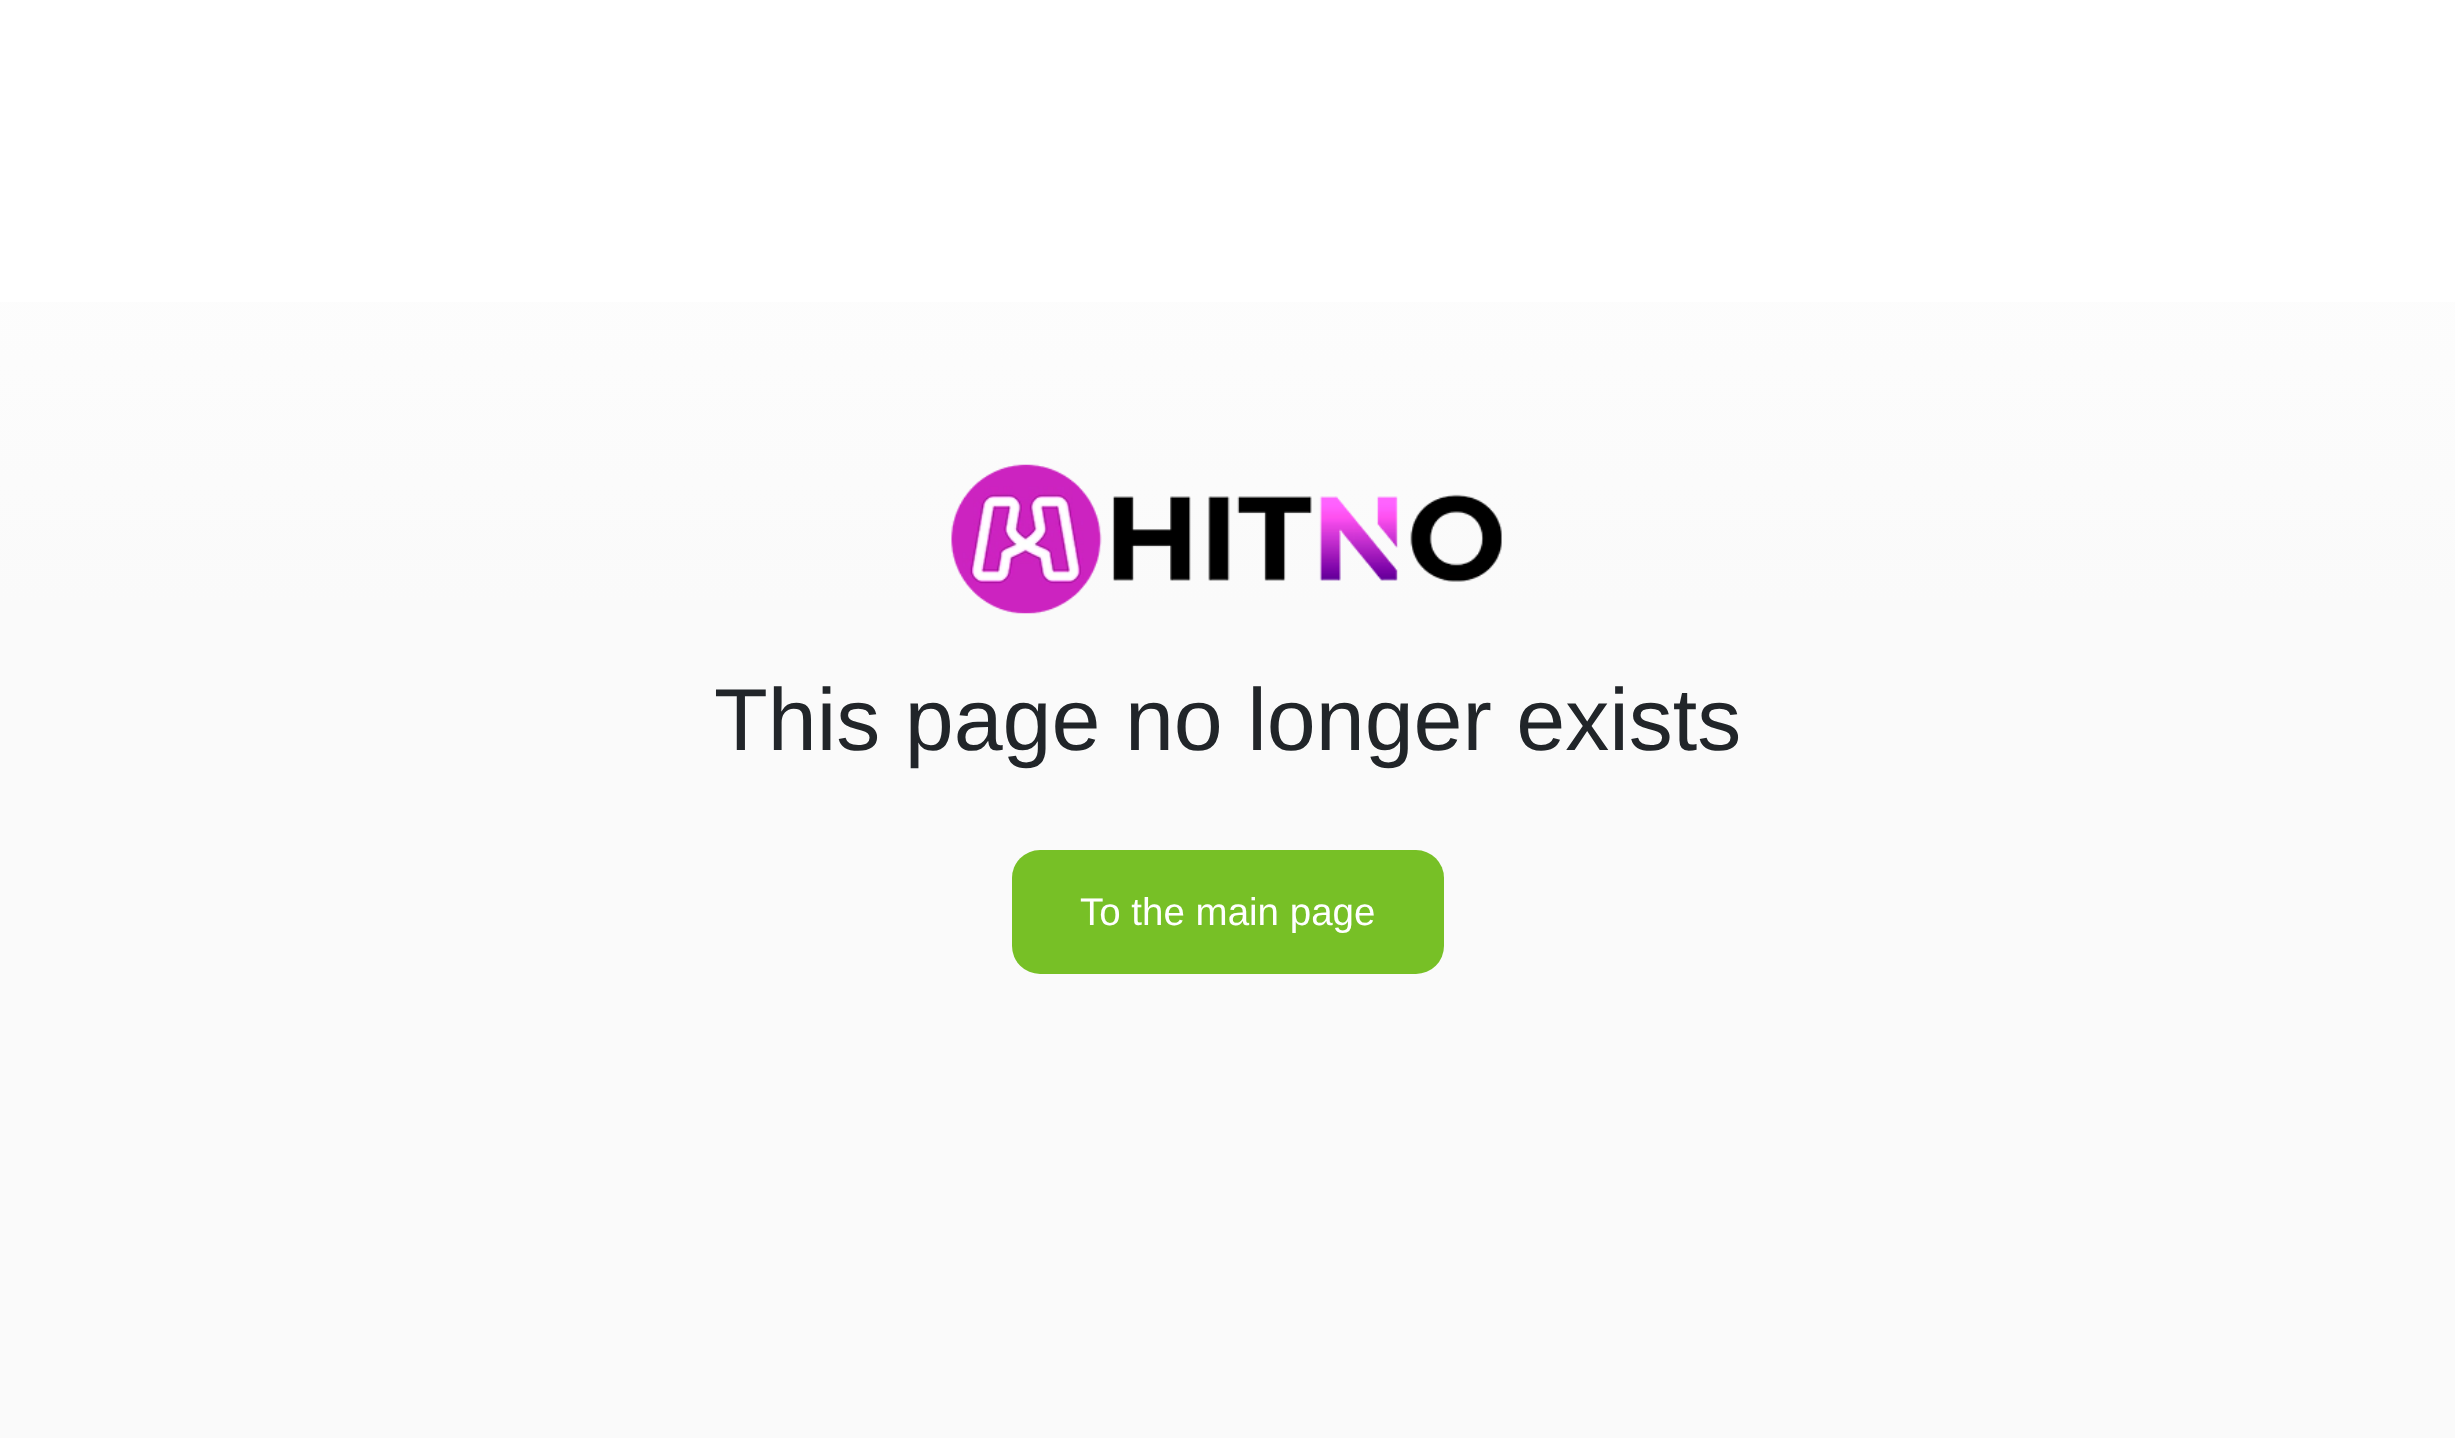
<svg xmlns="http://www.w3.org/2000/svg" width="2455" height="1438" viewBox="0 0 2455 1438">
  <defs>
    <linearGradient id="g1" gradientUnits="userSpaceOnUse" x1="1228" y1="0" x2="1228" y2="1438"><stop offset="0" stop-color="rgb(255,255,255)"/><stop offset="0.42" stop-color="rgb(250,250,250)"/></linearGradient>
  </defs>
  <rect width="100%" height="100%" fill="rgb(255,255,255)"/>
  <rect x="0" y="302" width="2455" height="1136" fill="url(#g1)"/>
  <image x="951" y="464" width="551" height="150" href="pic1.png"/>
  <text x="714" y="750" font-family="Liberation Sans" font-size="88" fill="rgb(33,37,41)">This page no longer exists</text>
  <rect x="1012" y="850" width="432" height="124" rx="28" fill="rgb(119,192,38)"/>
  <text x="1080" y="925" font-family="Liberation Sans" font-size="38.5" fill="rgb(255,255,255)">To the main page</text>
</svg>
